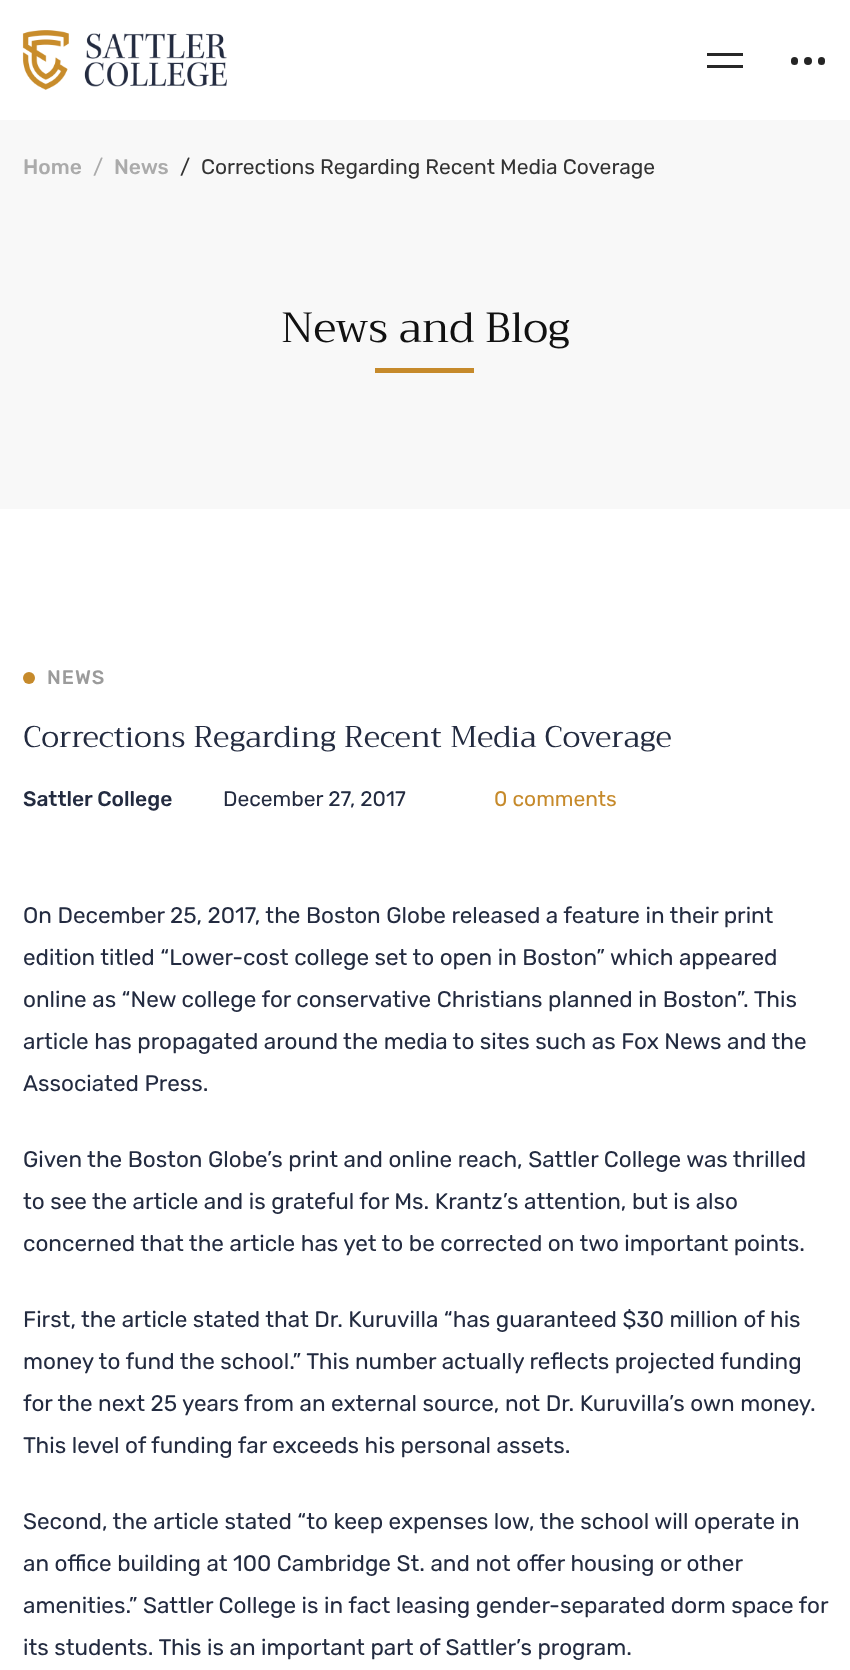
<svg xmlns="http://www.w3.org/2000/svg" width="850" height="1670" viewBox="0 0 850 1670">
  <rect width="100%" height="100%" fill="rgb(255,255,255)"/>
  <image x="22" y="30" width="205" height="60" href="pic1.png"/>
  <rect x="707" y="53" width="36" height="3" fill="rgb(39,39,39)"/>
  <rect x="707" y="65" width="36" height="3" fill="rgb(39,39,39)"/>
  <rect x="791" y="57" width="7" height="8" rx="3.5" fill="rgb(37,37,37)"/>
  <circle cx="808" cy="61" r="4" fill="rgb(37,37,37)"/>
  <rect x="818" y="57" width="7" height="8" rx="3.5" fill="rgb(37,37,37)"/>
  <rect x="0" y="120" width="850" height="389" fill="rgb(248,248,248)"/>
  <text x="23" y="174" font-family="Rubik" font-size="21" font-weight="500" fill="rgb(171,171,171)">Home</text>
  <text x="93" y="174" font-family="Rubik" font-size="21" fill="rgb(171,171,171)">/</text>
  <text x="114" y="174" font-family="Rubik" font-size="21" font-weight="500" fill="rgb(171,171,171)">News</text>
  <g font-family="Rubik" font-size="21" fill="rgb(51,51,51)">
    <text x="180" y="174">/</text>
    <text x="201" y="174">Corrections Regarding Recent Media Coverage</text>
  </g>
  <text x="281" y="342" font-family="Trirong" font-size="42" fill="rgb(17,17,17)">News and Blog</text>
  <rect x="375" y="368" width="99" height="5" fill="rgb(198,138,43)"/>
  <circle cx="29" cy="678" r="6" fill="rgb(198,138,43)"/>
  <text x="47" y="684" font-family="Rubik" font-size="19.5" font-weight="500" letter-spacing="1" fill="rgb(155,155,155)">NEWS</text>
  <text x="23" y="747" font-family="Trirong" font-size="30" fill="rgb(35,43,64)">Corrections Regarding Recent Media Coverage</text>
  <text x="23" y="806" font-family="Rubik" font-size="21" font-weight="500" fill="rgb(35,43,64)">Sattler College</text>
  <text x="223" y="806" font-family="Rubik" font-size="21" fill="rgb(35,43,64)">December 27, 2017</text>
  <text x="494" y="806" font-family="Rubik" font-size="21" fill="rgb(198,138,43)">0 comments</text>
  <g font-family="Rubik" font-size="22.5" fill="rgb(35,43,64)">
    <text>
      <tspan x="23" y="923">On December 25, 2017, the Boston Globe released a feature in their print</tspan>
      <tspan x="23" y="965">edition titled “Lower-cost college set to open in Boston” which appeared</tspan>
      <tspan x="23" y="1007">online as “New college for conservative Christians planned in Boston”. This</tspan>
      <tspan x="23" y="1049">article has propagated around the media to sites such as Fox News and the</tspan>
      <tspan x="23" y="1091">Associated Press.</tspan>
    </text>
    <text>
      <tspan x="23" y="1167">Given the Boston Globe’s print and online reach, Sattler College was thrilled</tspan>
      <tspan x="23" y="1209">to see the article and is grateful for Ms. Krantz’s attention, but is also</tspan>
      <tspan x="23" y="1251">concerned that the article has yet to be corrected on two important points.</tspan>
    </text>
    <text>
      <tspan x="23" y="1327">First, the article stated that Dr. Kuruvilla “has guaranteed $30 million of his</tspan>
      <tspan x="23" y="1369">money to fund the school.” This number actually reflects projected funding</tspan>
      <tspan x="23" y="1411">for the next 25 years from an external source, not Dr. Kuruvilla’s own money.</tspan>
      <tspan x="23" y="1453">This level of funding far exceeds his personal assets.</tspan>
    </text>
    <text>
      <tspan x="23" y="1529">Second, the article stated “to keep expenses low, the school will operate in</tspan>
      <tspan x="23" y="1571">an office building at 100 Cambridge St. and not offer housing or other</tspan>
      <tspan x="23" y="1613">amenities.” Sattler College is in fact leasing gender-separated dorm space for</tspan>
      <tspan x="23" y="1655">its students. This is an important part of Sattler’s program.</tspan>
    </text>
  </g>
</svg>
